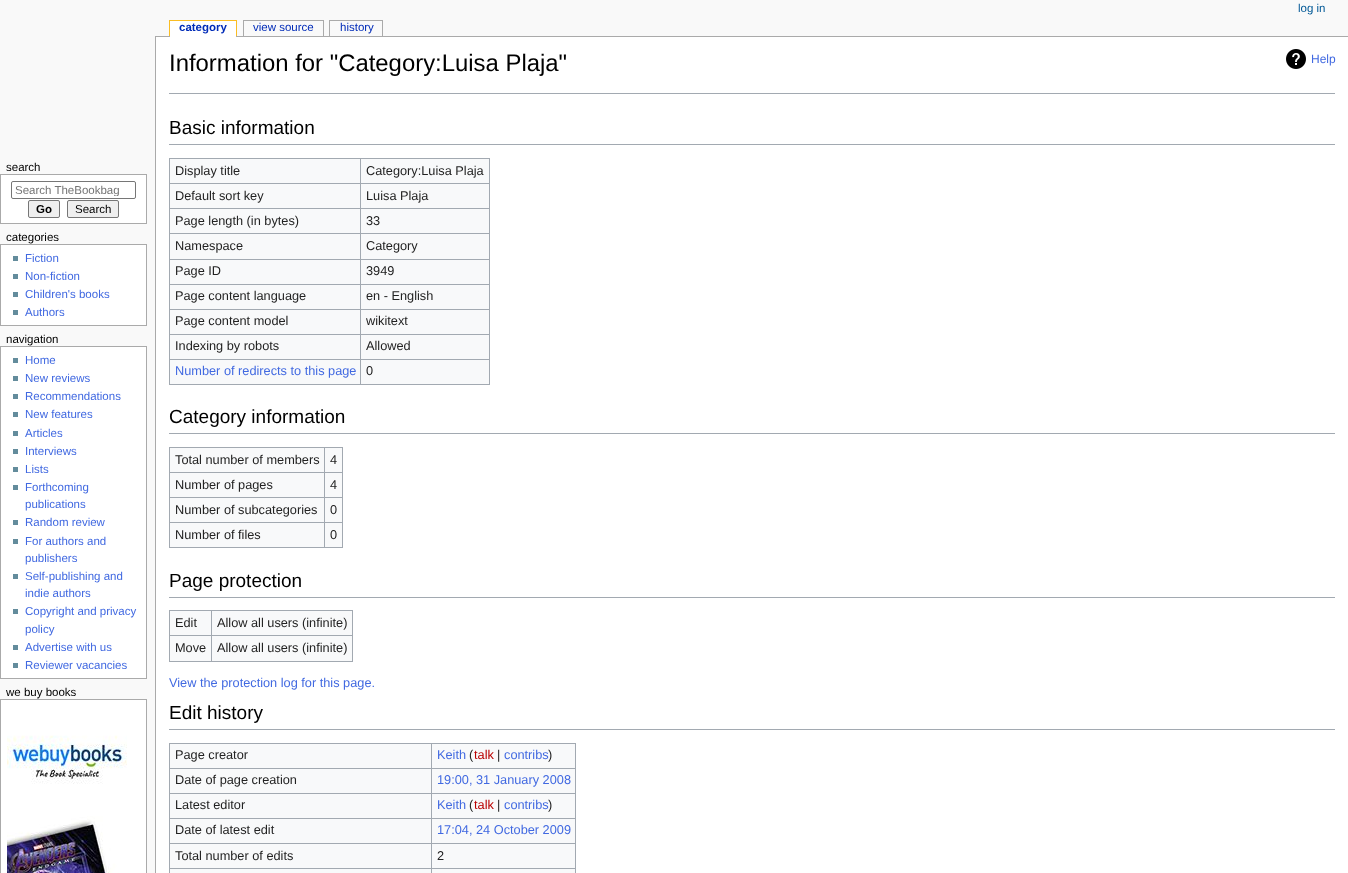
<svg xmlns="http://www.w3.org/2000/svg" width="1348" height="873" viewBox="0 0 1348 873">
  <defs>
    <clipPath id="clip1"><rect x="15" y="184" width="105" height="12"/></clipPath>
  </defs>
  <rect width="100%" height="100%" fill="rgb(249,249,249)"/>
  <text x="1298" y="12" font-family="Liberation Sans" font-size="11.5" fill="rgb(0,88,150)">log in</text>
  <rect x="155" y="36" width="1193" height="1" fill="rgb(170,170,170)"/>
  <rect x="170" y="21" width="66" height="16" fill="rgb(255,255,255)"/>
  <text x="179" y="31" font-family="Liberation Sans" font-size="11.5" font-weight="bold" fill="rgb(0,43,184)">category</text>
  <rect x="169" y="20" width="68" height="1" fill="rgb(250,189,35)"/>
  <rect x="236" y="20" width="1" height="16" fill="rgb(250,189,35)"/>
  <rect x="169" y="20" width="1" height="16" fill="rgb(250,189,35)"/>
  <text x="253" y="31" font-family="Liberation Sans" font-size="11.5" fill="rgb(0,43,184)">view source</text>
  <rect x="243" y="20" width="81" height="1" fill="rgb(170,170,170)"/>
  <rect x="323" y="20" width="1" height="16" fill="rgb(170,170,170)"/>
  <rect x="243" y="20" width="1" height="16" fill="rgb(170,170,170)"/>
  <text x="340" y="31" font-family="Liberation Sans" font-size="11.5" fill="rgb(0,43,184)">history</text>
  <rect x="329" y="20" width="54" height="1" fill="rgb(170,170,170)"/>
  <rect x="382" y="20" width="1" height="16" fill="rgb(170,170,170)"/>
  <rect x="329" y="20" width="1" height="16" fill="rgb(170,170,170)"/>
  <text x="6" y="171" font-family="Liberation Sans" font-size="11.5" fill="rgb(0,0,0)">search</text>
  <rect x="0.5" y="174.5" width="146" height="49" fill="rgb(255,255,255)" stroke="rgb(170,170,170)"/>
  <rect x="11.5" y="181.5" width="124" height="17" rx="1.5" fill="none" stroke="rgb(118,118,118)"/>
  <g clip-path="url(#clip1)">
    <text x="15" y="194" font-family="Liberation Sans" font-size="11.5" fill="rgb(117,117,117)">Search TheBookbag</text>
  </g>
  <rect x="28.5" y="200.5" width="31" height="17" rx="1.5" fill="rgb(239,239,239)" stroke="rgb(118,118,118)"/>
  <text x="36" y="213" font-family="Liberation Sans" font-size="11.5" font-weight="bold" fill="rgb(0,0,0)">Go</text>
  <rect x="67.5" y="200.5" width="51" height="17" rx="1.5" fill="rgb(239,239,239)" stroke="rgb(118,118,118)"/>
  <g font-family="Liberation Sans" font-size="11.5" fill="rgb(0,0,0)">
    <text x="75" y="213">Search</text>
    <text x="6" y="241">categories</text>
  </g>
  <rect x="0.5" y="244.5" width="146" height="81" fill="rgb(255,255,255)" stroke="rgb(170,170,170)"/>
  <rect x="13" y="256" width="5" height="5" fill="rgb(99,140,156)"/>
  <text x="25" y="262" font-family="Liberation Sans" font-size="11.5" fill="rgb(65,105,225)">Fiction</text>
  <rect x="13" y="274" width="5" height="5" fill="rgb(99,140,156)"/>
  <text x="25" y="280" font-family="Liberation Sans" font-size="11.5" fill="rgb(65,105,225)">Non-fiction</text>
  <rect x="13" y="292" width="5" height="5" fill="rgb(99,140,156)"/>
  <text x="25" y="298" font-family="Liberation Sans" font-size="11.5" fill="rgb(65,105,225)">Children's books</text>
  <rect x="13" y="310" width="5" height="5" fill="rgb(99,140,156)"/>
  <text x="25" y="316" font-family="Liberation Sans" font-size="11.5" fill="rgb(65,105,225)">Authors</text>
  <text x="6" y="343" font-family="Liberation Sans" font-size="11.5" fill="rgb(0,0,0)">navigation</text>
  <rect x="0.5" y="346.5" width="146" height="332" fill="rgb(255,255,255)" stroke="rgb(170,170,170)"/>
  <rect x="13" y="358" width="5" height="5" fill="rgb(99,140,156)"/>
  <text x="25" y="364" font-family="Liberation Sans" font-size="11.5" fill="rgb(65,105,225)">Home</text>
  <rect x="13" y="376" width="5" height="5" fill="rgb(99,140,156)"/>
  <text x="25" y="382" font-family="Liberation Sans" font-size="11.5" fill="rgb(65,105,225)">New reviews</text>
  <rect x="13" y="394" width="5" height="5" fill="rgb(99,140,156)"/>
  <text x="25" y="400" font-family="Liberation Sans" font-size="11.5" fill="rgb(65,105,225)">Recommendations</text>
  <rect x="13" y="412" width="5" height="5" fill="rgb(99,140,156)"/>
  <text x="25" y="418" font-family="Liberation Sans" font-size="11.5" fill="rgb(65,105,225)">New features</text>
  <rect x="13" y="431" width="5" height="5" fill="rgb(99,140,156)"/>
  <text x="25" y="437" font-family="Liberation Sans" font-size="11.5" fill="rgb(65,105,225)">Articles</text>
  <rect x="13" y="449" width="5" height="5" fill="rgb(99,140,156)"/>
  <text x="25" y="455" font-family="Liberation Sans" font-size="11.5" fill="rgb(65,105,225)">Interviews</text>
  <rect x="13" y="467" width="5" height="5" fill="rgb(99,140,156)"/>
  <text x="25" y="473" font-family="Liberation Sans" font-size="11.5" fill="rgb(65,105,225)">Lists</text>
  <rect x="13" y="485" width="5" height="5" fill="rgb(99,140,156)"/>
  <g font-family="Liberation Sans" font-size="11.5" fill="rgb(65,105,225)">
    <text>
      <tspan x="25" y="491">Forthcoming</tspan>
      <tspan x="25" y="508">publications</tspan>
    </text>
  </g>
  <rect x="13" y="520" width="5" height="5" fill="rgb(99,140,156)"/>
  <text x="25" y="526" font-family="Liberation Sans" font-size="11.5" fill="rgb(65,105,225)">Random review</text>
  <rect x="13" y="539" width="5" height="5" fill="rgb(99,140,156)"/>
  <g font-family="Liberation Sans" font-size="11.5" fill="rgb(65,105,225)">
    <text>
      <tspan x="25" y="545">For authors and</tspan>
      <tspan x="25" y="562">publishers</tspan>
    </text>
  </g>
  <rect x="13" y="574" width="5" height="5" fill="rgb(99,140,156)"/>
  <g font-family="Liberation Sans" font-size="11.5" fill="rgb(65,105,225)">
    <text>
      <tspan x="25" y="580">Self-publishing and</tspan>
      <tspan x="25" y="597">indie authors</tspan>
    </text>
  </g>
  <rect x="13" y="609" width="5" height="5" fill="rgb(99,140,156)"/>
  <g font-family="Liberation Sans" font-size="11.5" fill="rgb(65,105,225)">
    <text>
      <tspan x="25" y="615">Copyright and privacy</tspan>
      <tspan x="25" y="633">policy</tspan>
    </text>
  </g>
  <rect x="13" y="645" width="5" height="5" fill="rgb(99,140,156)"/>
  <text x="25" y="651" font-family="Liberation Sans" font-size="11.5" fill="rgb(65,105,225)">Advertise with us</text>
  <rect x="13" y="663" width="5" height="5" fill="rgb(99,140,156)"/>
  <text x="25" y="669" font-family="Liberation Sans" font-size="11.5" fill="rgb(65,105,225)">Reviewer vacancies</text>
  <text x="6" y="696" font-family="Liberation Sans" font-size="11.5" fill="rgb(0,0,0)">we buy books</text>
  <rect x="0.5" y="699.5" width="146" height="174" fill="rgb(255,255,255)" stroke="rgb(170,170,170)"/>
  <image x="7" y="735" width="120" height="138" href="pic1.png"/>
  <rect x="156" y="37" width="1192" height="836" fill="rgb(255,255,255)"/>
  <rect x="155" y="36" width="1" height="837" fill="rgb(170,170,170)"/>
  <rect x="169" y="93" width="1166" height="1" fill="rgb(162,169,177)"/>
  <text x="169" y="71" font-family="Liberation Sans" font-size="23.9" fill="rgb(0,0,0)">Information for "Category:Luisa Plaja"</text>
  <image x="1286" y="49" width="20" height="20" href="pic2.png"/>
  <text x="1311" y="63" font-family="Liberation Sans" font-size="12" fill="rgb(65,105,225)">Help</text>
  <rect x="169" y="144" width="1166" height="1" fill="rgb(162,169,177)"/>
  <text x="169" y="134" font-family="Liberation Sans" font-size="19" fill="rgb(0,0,0)">Basic information</text>
  <rect x="170" y="159" width="319" height="225" fill="rgb(248,249,250)"/>
  <rect x="169" y="158" width="321" height="1" fill="rgb(162,169,177)"/>
  <rect x="489" y="158" width="1" height="227" fill="rgb(162,169,177)"/>
  <rect x="169" y="384" width="321" height="1" fill="rgb(162,169,177)"/>
  <rect x="169" y="158" width="1" height="227" fill="rgb(162,169,177)"/>
  <text x="175" y="175" font-family="Liberation Sans" font-size="12.75" fill="rgb(34,34,34)">Display title</text>
  <rect x="360" y="183" width="130" height="1" fill="rgb(162,169,177)"/>
  <rect x="360" y="208" width="130" height="1" fill="rgb(162,169,177)"/>
  <rect x="360" y="233" width="130" height="1" fill="rgb(162,169,177)"/>
  <rect x="360" y="259" width="130" height="1" fill="rgb(162,169,177)"/>
  <rect x="360" y="284" width="130" height="1" fill="rgb(162,169,177)"/>
  <rect x="360" y="309" width="130" height="1" fill="rgb(162,169,177)"/>
  <rect x="360" y="334" width="130" height="1" fill="rgb(162,169,177)"/>
  <rect x="360" y="359" width="130" height="1" fill="rgb(162,169,177)"/>
  <rect x="360" y="359" width="1" height="26" fill="rgb(162,169,177)"/>
  <rect x="169" y="359" width="192" height="1" fill="rgb(162,169,177)"/>
  <rect x="360" y="334" width="1" height="26" fill="rgb(162,169,177)"/>
  <rect x="169" y="334" width="192" height="1" fill="rgb(162,169,177)"/>
  <rect x="360" y="309" width="1" height="26" fill="rgb(162,169,177)"/>
  <rect x="169" y="309" width="192" height="1" fill="rgb(162,169,177)"/>
  <rect x="360" y="284" width="1" height="26" fill="rgb(162,169,177)"/>
  <rect x="169" y="284" width="192" height="1" fill="rgb(162,169,177)"/>
  <rect x="360" y="259" width="1" height="26" fill="rgb(162,169,177)"/>
  <rect x="169" y="259" width="192" height="1" fill="rgb(162,169,177)"/>
  <rect x="360" y="233" width="1" height="27" fill="rgb(162,169,177)"/>
  <rect x="169" y="233" width="192" height="1" fill="rgb(162,169,177)"/>
  <rect x="360" y="208" width="1" height="26" fill="rgb(162,169,177)"/>
  <rect x="169" y="208" width="192" height="1" fill="rgb(162,169,177)"/>
  <rect x="360" y="183" width="1" height="26" fill="rgb(162,169,177)"/>
  <rect x="169" y="183" width="192" height="1" fill="rgb(162,169,177)"/>
  <rect x="360" y="158" width="1" height="26" fill="rgb(162,169,177)"/>
  <g font-family="Liberation Sans" font-size="12.75" fill="rgb(34,34,34)">
    <text x="366" y="175">Category:Luisa Plaja</text>
    <text x="175" y="200">Default sort key</text>
    <text x="366" y="200">Luisa Plaja</text>
    <text x="175" y="225">Page length (in bytes)</text>
    <text x="366" y="225">33</text>
    <text x="175" y="250">Namespace</text>
    <text x="366" y="250">Category</text>
    <text x="175" y="275">Page ID</text>
    <text x="366" y="275">3949</text>
    <text x="175" y="300">Page content language</text>
    <text x="366" y="300">en - English</text>
    <text x="175" y="325">Page content model</text>
    <text x="366" y="325">wikitext</text>
    <text x="175" y="350">Indexing by robots</text>
    <text x="366" y="350">Allowed</text>
  </g>
  <text x="175" y="375" font-family="Liberation Sans" font-size="12.75" fill="rgb(65,105,225)">Number of redirects to this page</text>
  <text x="366" y="375" font-family="Liberation Sans" font-size="12.75" fill="rgb(34,34,34)">0</text>
  <rect x="169" y="433" width="1166" height="1" fill="rgb(162,169,177)"/>
  <text x="169" y="423" font-family="Liberation Sans" font-size="19" fill="rgb(0,0,0)">Category information</text>
  <rect x="170" y="448" width="172" height="99" fill="rgb(248,249,250)"/>
  <rect x="169" y="447" width="174" height="1" fill="rgb(162,169,177)"/>
  <rect x="342" y="447" width="1" height="101" fill="rgb(162,169,177)"/>
  <rect x="169" y="547" width="174" height="1" fill="rgb(162,169,177)"/>
  <rect x="169" y="447" width="1" height="101" fill="rgb(162,169,177)"/>
  <text x="175" y="464" font-family="Liberation Sans" font-size="12.75" fill="rgb(34,34,34)">Total number of members</text>
  <rect x="324" y="472" width="19" height="1" fill="rgb(162,169,177)"/>
  <rect x="324" y="497" width="19" height="1" fill="rgb(162,169,177)"/>
  <rect x="324" y="522" width="19" height="1" fill="rgb(162,169,177)"/>
  <rect x="324" y="522" width="1" height="26" fill="rgb(162,169,177)"/>
  <rect x="169" y="522" width="156" height="1" fill="rgb(162,169,177)"/>
  <rect x="324" y="497" width="1" height="26" fill="rgb(162,169,177)"/>
  <rect x="169" y="497" width="156" height="1" fill="rgb(162,169,177)"/>
  <rect x="324" y="472" width="1" height="26" fill="rgb(162,169,177)"/>
  <rect x="169" y="472" width="156" height="1" fill="rgb(162,169,177)"/>
  <rect x="324" y="447" width="1" height="26" fill="rgb(162,169,177)"/>
  <g font-family="Liberation Sans" font-size="12.75" fill="rgb(34,34,34)">
    <text x="330" y="464">4</text>
    <text x="175" y="489">Number of pages</text>
    <text x="330" y="489">4</text>
    <text x="175" y="514">Number of subcategories</text>
    <text x="330" y="514">0</text>
    <text x="175" y="539">Number of files</text>
    <text x="330" y="539">0</text>
  </g>
  <rect x="169" y="597" width="1166" height="1" fill="rgb(162,169,177)"/>
  <text x="169" y="587" font-family="Liberation Sans" font-size="19" fill="rgb(0,0,0)">Page protection</text>
  <rect x="170" y="611" width="182" height="50" fill="rgb(248,249,250)"/>
  <rect x="169" y="610" width="184" height="1" fill="rgb(162,169,177)"/>
  <rect x="352" y="610" width="1" height="52" fill="rgb(162,169,177)"/>
  <rect x="169" y="661" width="184" height="1" fill="rgb(162,169,177)"/>
  <rect x="169" y="610" width="1" height="52" fill="rgb(162,169,177)"/>
  <text x="175" y="627" font-family="Liberation Sans" font-size="12.75" fill="rgb(34,34,34)">Edit</text>
  <rect x="211" y="635" width="142" height="1" fill="rgb(162,169,177)"/>
  <rect x="211" y="635" width="1" height="27" fill="rgb(162,169,177)"/>
  <rect x="169" y="635" width="43" height="1" fill="rgb(162,169,177)"/>
  <rect x="211" y="610" width="1" height="26" fill="rgb(162,169,177)"/>
  <g font-family="Liberation Sans" font-size="12.75" fill="rgb(34,34,34)">
    <text x="217" y="627">Allow all users (infinite)</text>
    <text x="175" y="652">Move</text>
    <text x="217" y="652">Allow all users (infinite)</text>
  </g>
  <text x="169" y="687" font-family="Liberation Sans" font-size="12.75" fill="rgb(65,105,225)">View the protection log for this page.</text>
  <rect x="169" y="729" width="1166" height="1" fill="rgb(162,169,177)"/>
  <text x="169" y="719" font-family="Liberation Sans" font-size="19" fill="rgb(0,0,0)">Edit history</text>
  <rect x="170" y="744" width="405" height="129" fill="rgb(248,249,250)"/>
  <rect x="169" y="743" width="407" height="1" fill="rgb(162,169,177)"/>
  <rect x="575" y="743" width="1" height="130" fill="rgb(162,169,177)"/>
  <rect x="169" y="743" width="1" height="130" fill="rgb(162,169,177)"/>
  <text x="175" y="759" font-family="Liberation Sans" font-size="12.75" fill="rgb(34,34,34)">Page creator</text>
  <rect x="431" y="768" width="145" height="1" fill="rgb(162,169,177)"/>
  <rect x="431" y="793" width="145" height="1" fill="rgb(162,169,177)"/>
  <rect x="431" y="818" width="145" height="1" fill="rgb(162,169,177)"/>
  <rect x="431" y="843" width="145" height="1" fill="rgb(162,169,177)"/>
  <rect x="431" y="868" width="145" height="1" fill="rgb(162,169,177)"/>
  <rect x="431" y="868" width="1" height="5" fill="rgb(162,169,177)"/>
  <rect x="169" y="868" width="263" height="1" fill="rgb(162,169,177)"/>
  <rect x="431" y="843" width="1" height="26" fill="rgb(162,169,177)"/>
  <rect x="169" y="843" width="263" height="1" fill="rgb(162,169,177)"/>
  <rect x="431" y="818" width="1" height="26" fill="rgb(162,169,177)"/>
  <rect x="169" y="818" width="263" height="1" fill="rgb(162,169,177)"/>
  <rect x="431" y="793" width="1" height="26" fill="rgb(162,169,177)"/>
  <rect x="169" y="793" width="263" height="1" fill="rgb(162,169,177)"/>
  <rect x="431" y="768" width="1" height="26" fill="rgb(162,169,177)"/>
  <rect x="169" y="768" width="263" height="1" fill="rgb(162,169,177)"/>
  <rect x="431" y="743" width="1" height="26" fill="rgb(162,169,177)"/>
  <text x="437" y="759" font-family="Liberation Sans" font-size="12.75" fill="rgb(65,105,225)">Keith</text>
  <text x="469" y="759" font-family="Liberation Sans" font-size="12.75" fill="rgb(34,34,34)">(</text>
  <text x="474" y="759" font-family="Liberation Sans" font-size="12.75" fill="rgb(186,0,0)">talk</text>
  <text x="497" y="759" font-family="Liberation Sans" font-size="12.75" fill="rgb(34,34,34)">|</text>
  <text x="504" y="759" font-family="Liberation Sans" font-size="12.75" fill="rgb(65,105,225)">contribs</text>
  <g font-family="Liberation Sans" font-size="12.75" fill="rgb(34,34,34)">
    <text x="548" y="759">)</text>
    <text x="175" y="784">Date of page creation</text>
  </g>
  <text x="437" y="784" font-family="Liberation Sans" font-size="12.75" fill="rgb(65,105,225)">19:00, 31 January 2008</text>
  <text x="175" y="809" font-family="Liberation Sans" font-size="12.75" fill="rgb(34,34,34)">Latest editor</text>
  <text x="437" y="809" font-family="Liberation Sans" font-size="12.75" fill="rgb(65,105,225)">Keith</text>
  <text x="469" y="809" font-family="Liberation Sans" font-size="12.75" fill="rgb(34,34,34)">(</text>
  <text x="474" y="809" font-family="Liberation Sans" font-size="12.75" fill="rgb(186,0,0)">talk</text>
  <text x="497" y="809" font-family="Liberation Sans" font-size="12.75" fill="rgb(34,34,34)">|</text>
  <text x="504" y="809" font-family="Liberation Sans" font-size="12.75" fill="rgb(65,105,225)">contribs</text>
  <g font-family="Liberation Sans" font-size="12.75" fill="rgb(34,34,34)">
    <text x="548" y="809">)</text>
    <text x="175" y="834">Date of latest edit</text>
  </g>
  <text x="437" y="834" font-family="Liberation Sans" font-size="12.75" fill="rgb(65,105,225)">17:04, 24 October 2009</text>
  <g font-family="Liberation Sans" font-size="12.75" fill="rgb(34,34,34)">
    <text x="175" y="860">Total number of edits</text>
    <text x="437" y="860">2</text>
  </g>
</svg>
